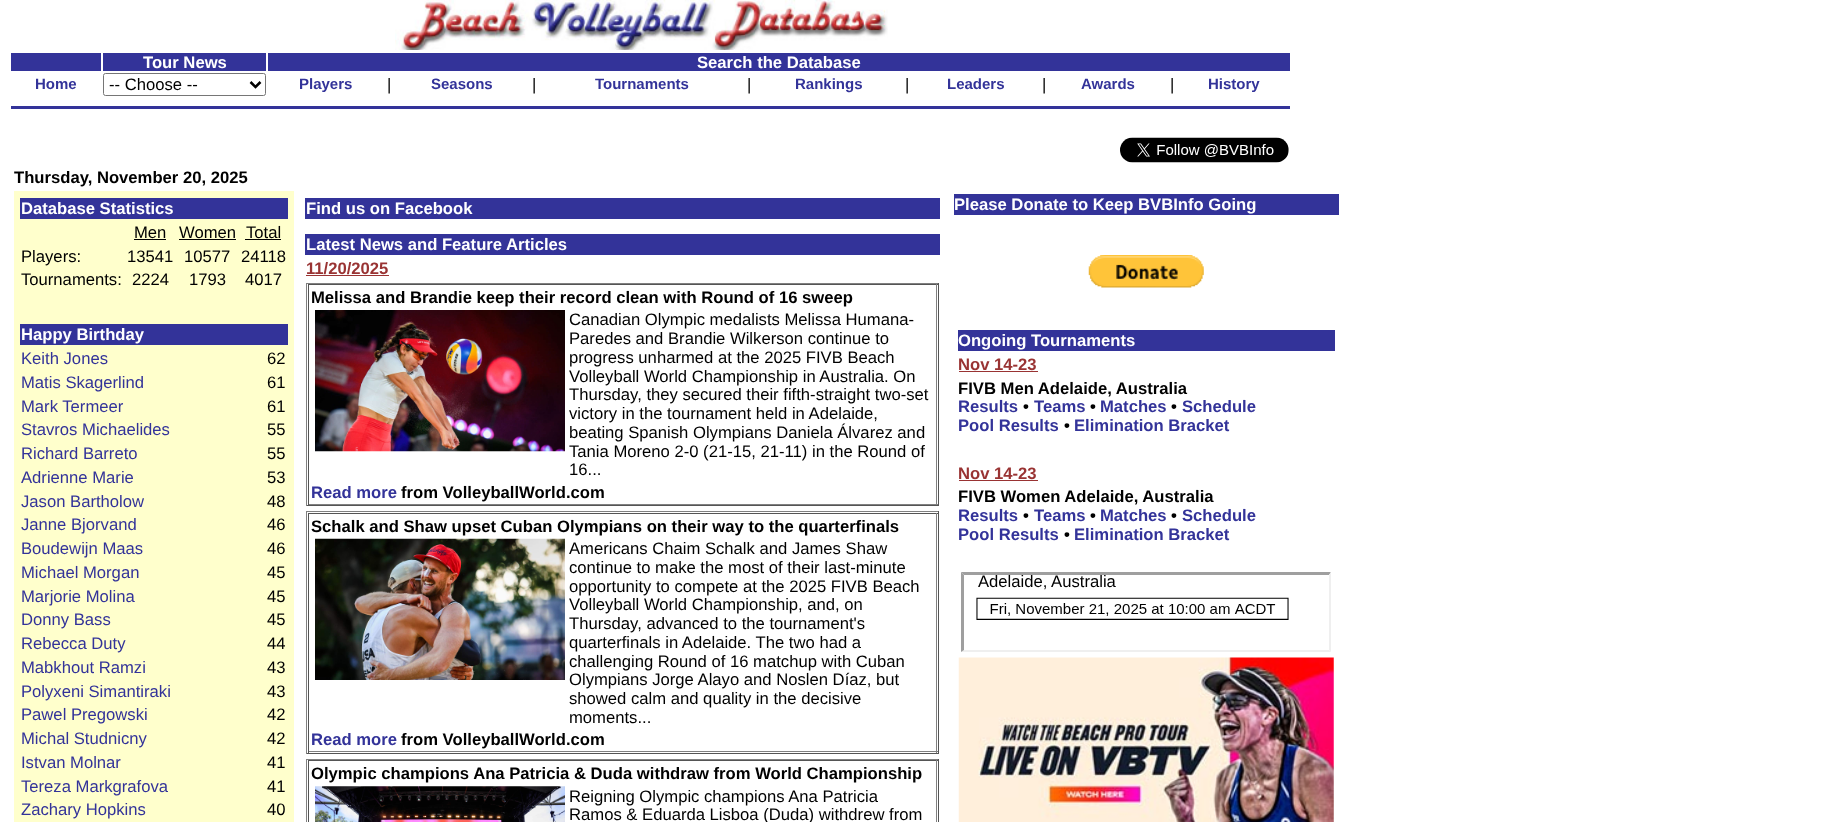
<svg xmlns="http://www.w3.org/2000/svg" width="1837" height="822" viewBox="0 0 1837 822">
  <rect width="100%" height="100%" fill="rgb(255,255,255)"/>
  <image x="395" y="0" width="493" height="50" href="pic1.png"/>
  <rect x="11" y="53" width="90" height="18" fill="rgb(51,51,153)"/>
  <rect x="103" y="53" width="163" height="18" fill="rgb(51,51,153)"/>
  <text x="143" y="68" font-family="Liberation Sans" font-size="16.65" font-weight="bold" fill="rgb(255,255,255)">Tour News</text>
  <rect x="268" y="53" width="1022" height="18" fill="rgb(51,51,153)"/>
  <text x="697" y="68" font-family="Liberation Sans" font-size="16.65" font-weight="bold" fill="rgb(255,255,255)">Search the Database</text>
  <text x="35" y="89" font-family="Liberation Sans" font-size="15" font-weight="bold" fill="rgb(51,51,153)">Home</text>
  <rect x="103.5" y="73.5" width="162" height="22" rx="2" fill="none" stroke="rgb(118,118,118)"/>
  <path d="M250.5 82L255.5 87L260.5 82" fill="none" stroke="rgb(0,0,0)" stroke-width="2.5"/>
  <text x="109" y="90" font-family="Liberation Sans" font-size="16.65" fill="rgb(0,0,0)">-- Choose --</text>
  <text x="299" y="89" font-family="Liberation Sans" font-size="15" font-weight="bold" fill="rgb(51,51,153)">Players</text>
  <text x="387" y="90" font-family="Liberation Sans" font-size="16.65" fill="rgb(0,0,0)">|</text>
  <text x="431" y="89" font-family="Liberation Sans" font-size="15" font-weight="bold" fill="rgb(51,51,153)">Seasons</text>
  <text x="532" y="90" font-family="Liberation Sans" font-size="16.65" fill="rgb(0,0,0)">|</text>
  <text x="595" y="89" font-family="Liberation Sans" font-size="15" font-weight="bold" fill="rgb(51,51,153)">Tournaments</text>
  <text x="747" y="90" font-family="Liberation Sans" font-size="16.65" fill="rgb(0,0,0)">|</text>
  <text x="795" y="89" font-family="Liberation Sans" font-size="15" font-weight="bold" fill="rgb(51,51,153)">Rankings</text>
  <text x="905" y="90" font-family="Liberation Sans" font-size="16.65" fill="rgb(0,0,0)">|</text>
  <text x="947" y="89" font-family="Liberation Sans" font-size="15" font-weight="bold" fill="rgb(51,51,153)">Leaders</text>
  <text x="1042" y="90" font-family="Liberation Sans" font-size="16.65" fill="rgb(0,0,0)">|</text>
  <text x="1081" y="89" font-family="Liberation Sans" font-size="15" font-weight="bold" fill="rgb(51,51,153)">Awards</text>
  <text x="1170" y="90" font-family="Liberation Sans" font-size="16.65" fill="rgb(0,0,0)">|</text>
  <text x="1208" y="89" font-family="Liberation Sans" font-size="15" font-weight="bold" fill="rgb(51,51,153)">History</text>
  <rect x="11" y="106" width="1279" height="3" fill="rgb(51,51,153)"/>
  <image x="1120" y="137" width="169" height="26" href="pic2.png"/>
  <text x="14" y="183" font-family="Liberation Sans" font-size="16.65" font-weight="bold" fill="rgb(0,0,0)">Thursday, November 20, 2025</text>
  <rect x="14" y="191" width="280" height="631" fill="rgb(255,255,204)"/>
  <rect x="20" y="198" width="268" height="21" fill="rgb(51,51,153)"/>
  <text x="21" y="214" font-family="Liberation Sans" font-size="16.65" font-weight="bold" fill="rgb(255,255,255)">Database Statistics</text>
  <text x="134" y="238" font-family="Liberation Sans" font-size="16.65" fill="rgb(0,0,0)">Men</text>
  <rect x="134" y="239" width="32" height="1" fill="rgb(0,0,0)"/>
  <text x="179" y="238" font-family="Liberation Sans" font-size="16.65" fill="rgb(0,0,0)">Women</text>
  <rect x="179" y="239" width="57" height="1" fill="rgb(0,0,0)"/>
  <text x="246" y="238" font-family="Liberation Sans" font-size="16.65" fill="rgb(0,0,0)">Total</text>
  <rect x="245" y="239" width="36" height="1" fill="rgb(0,0,0)"/>
  <g font-family="Liberation Sans" font-size="16.65" fill="rgb(0,0,0)">
    <text x="21" y="262">Players:</text>
    <text x="127" y="262">13541</text>
    <text x="184" y="262">10577</text>
    <text x="241" y="262">24118</text>
    <text x="21" y="285">Tournaments:</text>
    <text x="132" y="285">2224</text>
    <text x="189" y="285">1793</text>
    <text x="245" y="285">4017</text>
  </g>
  <rect x="20" y="324" width="268" height="21" fill="rgb(51,51,153)"/>
  <text x="21" y="340" font-family="Liberation Sans" font-size="16.65" font-weight="bold" fill="rgb(255,255,255)">Happy Birthday</text>
  <text x="21" y="364" font-family="Liberation Sans" font-size="16.65" fill="rgb(51,51,153)">Keith Jones</text>
  <text x="267" y="364" font-family="Liberation Sans" font-size="16.65" fill="rgb(0,0,0)">62</text>
  <text x="21" y="388" font-family="Liberation Sans" font-size="16.65" fill="rgb(51,51,153)">Matis Skagerlind</text>
  <text x="267" y="388" font-family="Liberation Sans" font-size="16.65" fill="rgb(0,0,0)">61</text>
  <text x="21" y="412" font-family="Liberation Sans" font-size="16.65" fill="rgb(51,51,153)">Mark Termeer</text>
  <text x="267" y="412" font-family="Liberation Sans" font-size="16.65" fill="rgb(0,0,0)">61</text>
  <text x="21" y="435" font-family="Liberation Sans" font-size="16.65" fill="rgb(51,51,153)">Stavros Michaelides</text>
  <text x="267" y="435" font-family="Liberation Sans" font-size="16.65" fill="rgb(0,0,0)">55</text>
  <text x="21" y="459" font-family="Liberation Sans" font-size="16.65" fill="rgb(51,51,153)">Richard Barreto</text>
  <text x="267" y="459" font-family="Liberation Sans" font-size="16.65" fill="rgb(0,0,0)">55</text>
  <text x="21" y="483" font-family="Liberation Sans" font-size="16.65" fill="rgb(51,51,153)">Adrienne Marie</text>
  <text x="267" y="483" font-family="Liberation Sans" font-size="16.65" fill="rgb(0,0,0)">53</text>
  <text x="21" y="507" font-family="Liberation Sans" font-size="16.65" fill="rgb(51,51,153)">Jason Bartholow</text>
  <text x="267" y="507" font-family="Liberation Sans" font-size="16.65" fill="rgb(0,0,0)">48</text>
  <text x="21" y="530" font-family="Liberation Sans" font-size="16.65" fill="rgb(51,51,153)">Janne Bjorvand</text>
  <text x="267" y="530" font-family="Liberation Sans" font-size="16.65" fill="rgb(0,0,0)">46</text>
  <text x="21" y="554" font-family="Liberation Sans" font-size="16.65" fill="rgb(51,51,153)">Boudewijn Maas</text>
  <text x="267" y="554" font-family="Liberation Sans" font-size="16.65" fill="rgb(0,0,0)">46</text>
  <text x="21" y="578" font-family="Liberation Sans" font-size="16.65" fill="rgb(51,51,153)">Michael Morgan</text>
  <text x="267" y="578" font-family="Liberation Sans" font-size="16.65" fill="rgb(0,0,0)">45</text>
  <text x="21" y="602" font-family="Liberation Sans" font-size="16.65" fill="rgb(51,51,153)">Marjorie Molina</text>
  <text x="267" y="602" font-family="Liberation Sans" font-size="16.65" fill="rgb(0,0,0)">45</text>
  <text x="21" y="625" font-family="Liberation Sans" font-size="16.65" fill="rgb(51,51,153)">Donny Bass</text>
  <text x="267" y="625" font-family="Liberation Sans" font-size="16.65" fill="rgb(0,0,0)">45</text>
  <text x="21" y="649" font-family="Liberation Sans" font-size="16.65" fill="rgb(51,51,153)">Rebecca Duty</text>
  <text x="267" y="649" font-family="Liberation Sans" font-size="16.65" fill="rgb(0,0,0)">44</text>
  <text x="21" y="673" font-family="Liberation Sans" font-size="16.65" fill="rgb(51,51,153)">Mabkhout Ramzi</text>
  <text x="267" y="673" font-family="Liberation Sans" font-size="16.65" fill="rgb(0,0,0)">43</text>
  <text x="21" y="697" font-family="Liberation Sans" font-size="16.65" fill="rgb(51,51,153)">Polyxeni Simantiraki</text>
  <text x="267" y="697" font-family="Liberation Sans" font-size="16.65" fill="rgb(0,0,0)">43</text>
  <text x="21" y="720" font-family="Liberation Sans" font-size="16.65" fill="rgb(51,51,153)">Pawel Pregowski</text>
  <text x="267" y="720" font-family="Liberation Sans" font-size="16.65" fill="rgb(0,0,0)">42</text>
  <text x="21" y="744" font-family="Liberation Sans" font-size="16.65" fill="rgb(51,51,153)">Michal Studnicny</text>
  <text x="267" y="744" font-family="Liberation Sans" font-size="16.65" fill="rgb(0,0,0)">42</text>
  <text x="21" y="768" font-family="Liberation Sans" font-size="16.65" fill="rgb(51,51,153)">Istvan Molnar</text>
  <text x="267" y="768" font-family="Liberation Sans" font-size="16.65" fill="rgb(0,0,0)">41</text>
  <text x="21" y="792" font-family="Liberation Sans" font-size="16.65" fill="rgb(51,51,153)">Tereza Markgrafova</text>
  <text x="267" y="792" font-family="Liberation Sans" font-size="16.65" fill="rgb(0,0,0)">41</text>
  <text x="21" y="815" font-family="Liberation Sans" font-size="16.65" fill="rgb(51,51,153)">Zachary Hopkins</text>
  <text x="267" y="815" font-family="Liberation Sans" font-size="16.65" fill="rgb(0,0,0)">40</text>
  <rect x="305" y="198" width="635" height="21" fill="rgb(51,51,153)"/>
  <text x="306" y="214" font-family="Liberation Sans" font-size="16.65" font-weight="bold" fill="rgb(255,255,255)">Find us on Facebook</text>
  <rect x="305" y="234" width="635" height="21" fill="rgb(51,51,153)"/>
  <text x="306" y="250" font-family="Liberation Sans" font-size="16.65" font-weight="bold" fill="rgb(255,255,255)">Latest News and Feature Articles</text>
  <text x="306" y="274" font-family="Liberation Sans" font-size="16.65" font-weight="bold" fill="rgb(153,51,51)">11/20/2025</text>
  <rect x="306" y="275" width="83" height="1" fill="rgb(153,51,51)"/>
  <rect x="306" y="283" width="633" height="1" fill="rgb(128,128,128)"/>
  <rect x="938" y="283" width="1" height="223" fill="rgb(85,85,85)"/>
  <rect x="306" y="505" width="633" height="1" fill="rgb(85,85,85)"/>
  <rect x="306" y="283" width="1" height="223" fill="rgb(128,128,128)"/>
  <rect x="308" y="284" width="630" height="1" fill="rgb(85,85,85)"/>
  <rect x="936" y="284" width="1" height="221" fill="rgb(128,128,128)"/>
  <rect x="308" y="504" width="630" height="1" fill="rgb(128,128,128)"/>
  <rect x="308" y="284" width="1" height="221" fill="rgb(85,85,85)"/>
  <text x="311" y="303" font-family="Liberation Sans" font-size="16.65" font-weight="bold" fill="rgb(0,0,0)">Melissa and Brandie keep their record clean with Round of 16 sweep</text>
  <image x="315" y="310" width="250" height="142" href="pic3.png"/>
  <g font-family="Liberation Sans" font-size="16.65" fill="rgb(0,0,0)">
    <text>
      <tspan x="569" y="325">Canadian Olympic medalists Melissa Humana-</tspan>
      <tspan x="569" y="344">Paredes and Brandie Wilkerson continue to</tspan>
      <tspan x="569" y="363">progress unharmed at the 2025 FIVB Beach</tspan>
      <tspan x="569" y="382">Volleyball World Championship in Australia. On</tspan>
      <tspan x="569" y="400">Thursday, they secured their fifth-straight two-set</tspan>
      <tspan x="569" y="419">victory in the tournament held in Adelaide,</tspan>
      <tspan x="569" y="438">beating Spanish Olympians Daniela Álvarez and</tspan>
      <tspan x="569" y="457">Tania Moreno 2-0 (21-15, 21-11) in the Round of</tspan>
      <tspan x="569" y="475">16...</tspan>
    </text>
  </g>
  <text x="311" y="498" font-family="Liberation Sans" font-size="16.65" font-weight="bold" fill="rgb(51,51,153)">Read more</text>
  <text x="401" y="498" font-family="Liberation Sans" font-size="16.65" font-weight="bold" fill="rgb(0,0,0)">from VolleyballWorld.com</text>
  <rect x="306" y="511" width="633" height="1" fill="rgb(128,128,128)"/>
  <rect x="938" y="511" width="1" height="243" fill="rgb(85,85,85)"/>
  <rect x="306" y="753" width="633" height="1" fill="rgb(85,85,85)"/>
  <rect x="306" y="511" width="1" height="243" fill="rgb(128,128,128)"/>
  <rect x="308" y="513" width="630" height="1" fill="rgb(85,85,85)"/>
  <rect x="936" y="513" width="1" height="240" fill="rgb(128,128,128)"/>
  <rect x="308" y="751" width="630" height="1" fill="rgb(128,128,128)"/>
  <rect x="308" y="513" width="1" height="240" fill="rgb(85,85,85)"/>
  <text x="311" y="532" font-family="Liberation Sans" font-size="16.65" font-weight="bold" fill="rgb(0,0,0)">Schalk and Shaw upset Cuban Olympians on their way to the quarterfinals</text>
  <image x="315" y="538" width="250" height="142" href="pic4.png"/>
  <g font-family="Liberation Sans" font-size="16.65" fill="rgb(0,0,0)">
    <text>
      <tspan x="569" y="554">Americans Chaim Schalk and James Shaw</tspan>
      <tspan x="569" y="573">continue to make the most of their last-minute</tspan>
      <tspan x="569" y="592">opportunity to compete at the 2025 FIVB Beach</tspan>
      <tspan x="569" y="610">Volleyball World Championship, and, on</tspan>
      <tspan x="569" y="629">Thursday, advanced to the tournament's</tspan>
      <tspan x="569" y="648">quarterfinals in Adelaide. The two had a</tspan>
      <tspan x="569" y="667">challenging Round of 16 matchup with Cuban</tspan>
      <tspan x="569" y="685">Olympians Jorge Alayo and Noslen Díaz, but</tspan>
      <tspan x="569" y="704">showed calm and quality in the decisive</tspan>
      <tspan x="569" y="723">moments...</tspan>
    </text>
  </g>
  <text x="311" y="745" font-family="Liberation Sans" font-size="16.65" font-weight="bold" fill="rgb(51,51,153)">Read more</text>
  <text x="401" y="745" font-family="Liberation Sans" font-size="16.65" font-weight="bold" fill="rgb(0,0,0)">from VolleyballWorld.com</text>
  <rect x="306" y="759" width="633" height="1" fill="rgb(128,128,128)"/>
  <rect x="938" y="759" width="1" height="63" fill="rgb(85,85,85)"/>
  <rect x="306" y="759" width="1" height="63" fill="rgb(128,128,128)"/>
  <rect x="308" y="760" width="630" height="1" fill="rgb(85,85,85)"/>
  <rect x="936" y="760" width="1" height="62" fill="rgb(128,128,128)"/>
  <rect x="308" y="760" width="1" height="62" fill="rgb(85,85,85)"/>
  <text x="311" y="779" font-family="Liberation Sans" font-size="16.65" font-weight="bold" fill="rgb(0,0,0)">Olympic champions Ana Patricia &amp; Duda withdraw from World Championship</text>
  <image x="315" y="786" width="250" height="36" href="pic5.png"/>
  <g font-family="Liberation Sans" font-size="16.65" fill="rgb(0,0,0)">
    <text>
      <tspan x="569" y="802">Reigning Olympic champions Ana Patricia</tspan>
      <tspan x="569" y="820">Ramos &amp; Eduarda Lisboa (Duda) withdrew from</tspan>
    </text>
  </g>
  <rect x="954" y="194" width="385" height="21" fill="rgb(51,51,153)"/>
  <text x="954" y="210" font-family="Liberation Sans" font-size="16.65" font-weight="bold" fill="rgb(255,255,255)">Please Donate to Keep BVBInfo Going</text>
  <image x="1088" y="255" width="116" height="33" href="pic6.png"/>
  <rect x="958" y="330" width="377" height="21" fill="rgb(51,51,153)"/>
  <text x="958" y="346" font-family="Liberation Sans" font-size="16.65" font-weight="bold" fill="rgb(255,255,255)">Ongoing Tournaments</text>
  <text x="958" y="370" font-family="Liberation Sans" font-size="16.65" font-weight="bold" fill="rgb(153,51,51)">Nov 14-23</text>
  <rect x="959" y="371" width="79" height="1" fill="rgb(153,51,51)"/>
  <text x="958" y="394" font-family="Liberation Sans" font-size="16.65" font-weight="bold" fill="rgb(0,0,0)">FIVB Men Adelaide, Australia</text>
  <text x="958" y="412" font-family="Liberation Sans" font-size="16.65" font-weight="bold" fill="rgb(51,51,153)">Results</text>
  <text x="1023" y="412" font-family="Liberation Sans" font-size="16.65" font-weight="bold" fill="rgb(0,0,0)">•</text>
  <text x="1034" y="412" font-family="Liberation Sans" font-size="16.65" font-weight="bold" fill="rgb(51,51,153)">Teams</text>
  <text x="1090" y="412" font-family="Liberation Sans" font-size="16.65" font-weight="bold" fill="rgb(0,0,0)">•</text>
  <text x="1100" y="412" font-family="Liberation Sans" font-size="16.65" font-weight="bold" fill="rgb(51,51,153)">Matches</text>
  <text x="1171" y="412" font-family="Liberation Sans" font-size="16.65" font-weight="bold" fill="rgb(0,0,0)">•</text>
  <g font-family="Liberation Sans" font-size="16.65" font-weight="bold" fill="rgb(51,51,153)">
    <text x="1182" y="412">Schedule</text>
    <text x="958" y="431">Pool Results</text>
  </g>
  <text x="1064" y="431" font-family="Liberation Sans" font-size="16.65" font-weight="bold" fill="rgb(0,0,0)">•</text>
  <text x="1074" y="431" font-family="Liberation Sans" font-size="16.65" font-weight="bold" fill="rgb(51,51,153)">Elimination Bracket</text>
  <text x="958" y="479" font-family="Liberation Sans" font-size="16.65" font-weight="bold" fill="rgb(153,51,51)">Nov 14-23</text>
  <rect x="959" y="480" width="79" height="1" fill="rgb(153,51,51)"/>
  <text x="958" y="502" font-family="Liberation Sans" font-size="16.65" font-weight="bold" fill="rgb(0,0,0)">FIVB Women Adelaide, Australia</text>
  <text x="958" y="521" font-family="Liberation Sans" font-size="16.65" font-weight="bold" fill="rgb(51,51,153)">Results</text>
  <text x="1023" y="521" font-family="Liberation Sans" font-size="16.65" font-weight="bold" fill="rgb(0,0,0)">•</text>
  <text x="1034" y="521" font-family="Liberation Sans" font-size="16.65" font-weight="bold" fill="rgb(51,51,153)">Teams</text>
  <text x="1090" y="521" font-family="Liberation Sans" font-size="16.65" font-weight="bold" fill="rgb(0,0,0)">•</text>
  <text x="1100" y="521" font-family="Liberation Sans" font-size="16.65" font-weight="bold" fill="rgb(51,51,153)">Matches</text>
  <text x="1171" y="521" font-family="Liberation Sans" font-size="16.65" font-weight="bold" fill="rgb(0,0,0)">•</text>
  <g font-family="Liberation Sans" font-size="16.65" font-weight="bold" fill="rgb(51,51,153)">
    <text x="1182" y="521">Schedule</text>
    <text x="958" y="540">Pool Results</text>
  </g>
  <text x="1064" y="540" font-family="Liberation Sans" font-size="16.65" font-weight="bold" fill="rgb(0,0,0)">•</text>
  <text x="1074" y="540" font-family="Liberation Sans" font-size="16.65" font-weight="bold" fill="rgb(51,51,153)">Elimination Bracket</text>
  <path d="M961 572H1331L1329 575H964Z" fill="rgb(159,159,159)"/>
  <path d="M1331 572V652L1329 650V575Z" fill="rgb(239,239,239)"/>
  <path d="M1331 652H961L964 650H1329Z" fill="rgb(239,239,239)"/>
  <path d="M961 652V572L964 575V650Z" fill="rgb(159,159,159)"/>
  <text x="978" y="587" font-family="Liberation Sans" font-size="16.65" fill="rgb(0,0,0)">Adelaide, Australia</text>
  <image x="976" y="597" width="313" height="23" href="pic7.png"/>
  <image x="958" y="657" width="376" height="165" href="pic8.png"/>
</svg>
